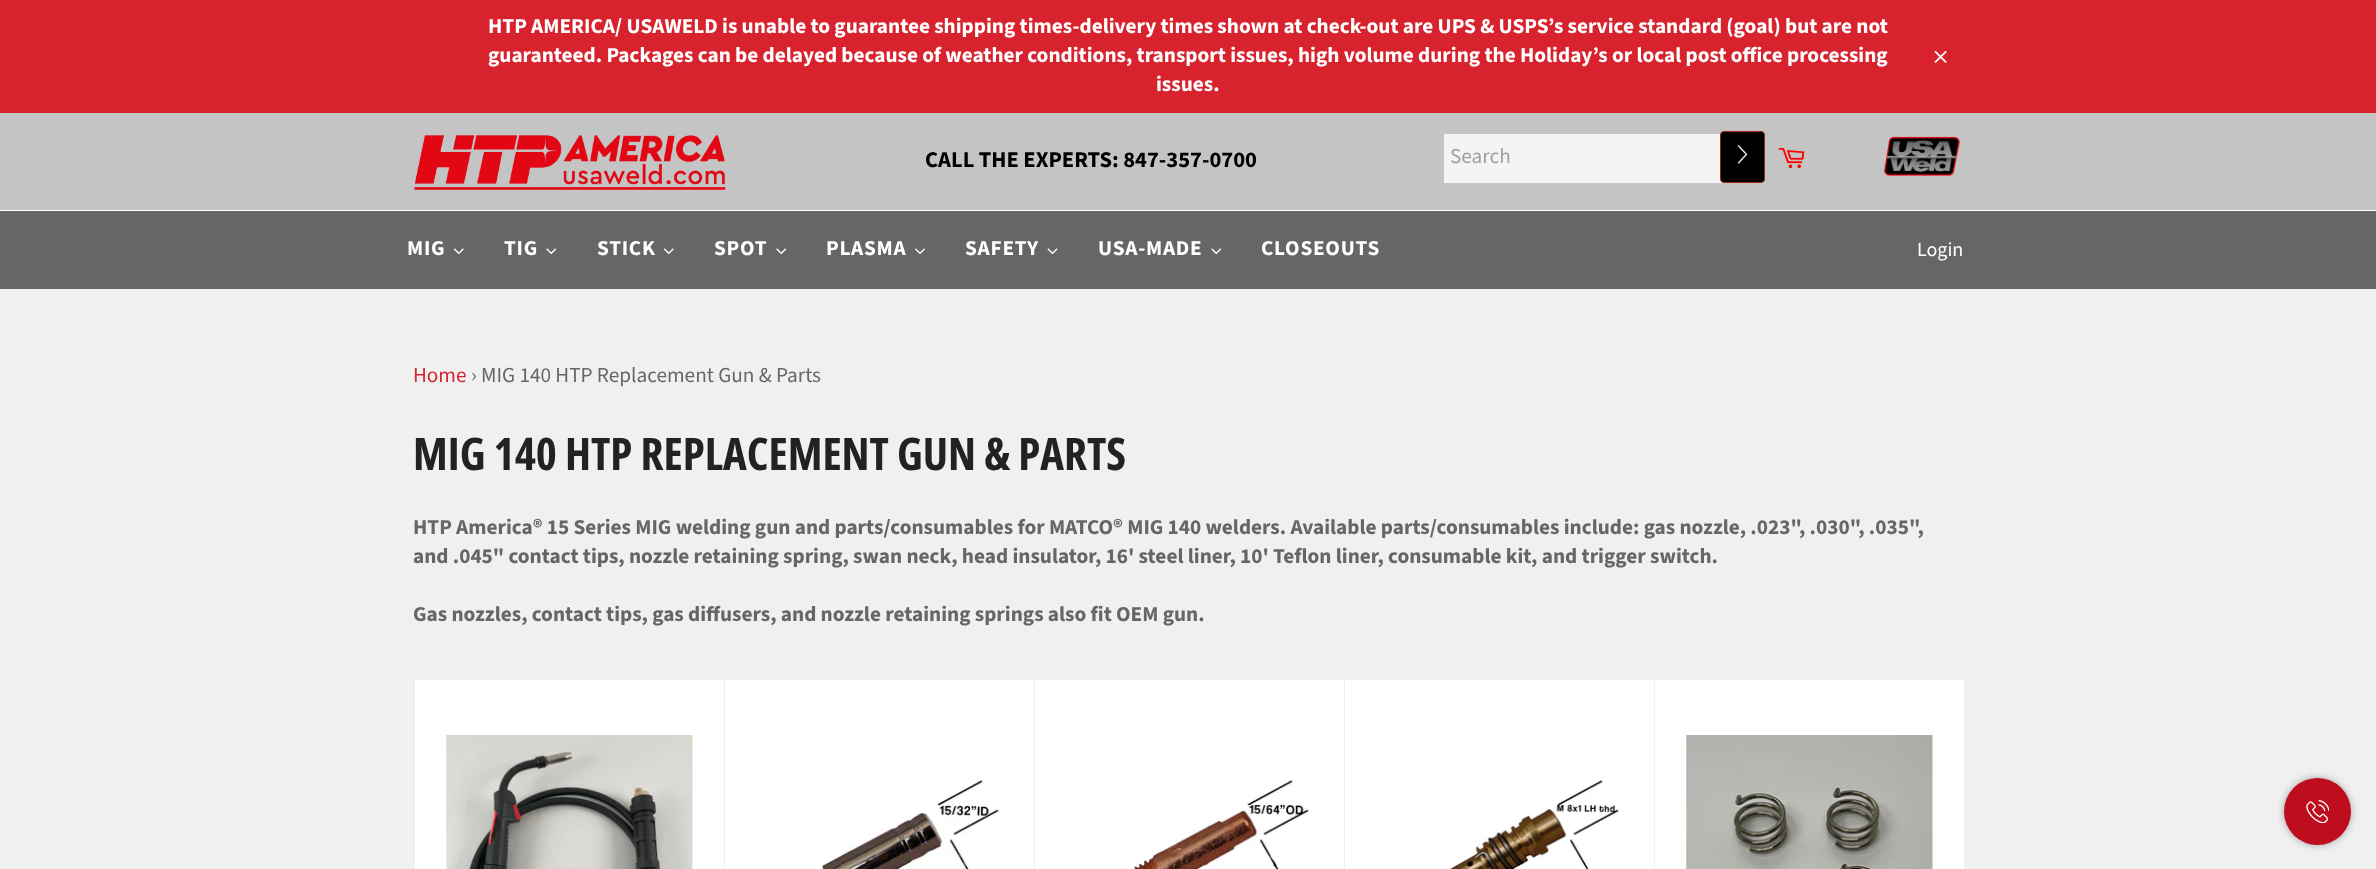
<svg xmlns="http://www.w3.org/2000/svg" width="2376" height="869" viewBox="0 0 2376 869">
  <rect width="100%" height="100%" fill="rgb(240,240,240)"/>
  <rect x="0" y="113" width="2376" height="97" fill="rgb(196,196,196)"/>
  <rect x="0" y="0" width="2376" height="113" fill="rgb(216,35,47)"/>
  <g font-family="Source Sans Pro" font-size="21.25" font-weight="bold" fill="rgb(255,255,255)">
    <text>
      <tspan x="488" y="33">HTP AMERICA/ USAWELD is unable to guarantee shipping times-delivery times shown at check-out are UPS &amp; USPS’s service standard (goal) but are not</tspan>
      <tspan x="488" y="62">guaranteed. Packages can be delayed because of weather conditions, transport issues, high volume during the Holiday’s or local post office processing</tspan>
    </text>
    <text x="1156" y="91">issues.</text>
  </g>
  <image x="1934" y="50" width="13" height="13" href="pic1.png"/>
  <image x="414" y="135" width="312" height="55" href="pic2.png"/>
  <text x="925" y="167" font-family="Source Sans Pro" font-size="22.5" font-weight="bold" fill="rgb(0,0,0)">CALL THE EXPERTS: 847-357-0700</text>
  <rect x="1444" y="134" width="279" height="49" fill="rgb(244,244,244)"/>
  <text x="1450" y="163" font-family="Source Sans Pro" font-size="21.25" fill="rgb(159,159,159)">Search</text>
  <rect x="1720.5" y="131.5" width="44" height="51" rx="3.5" fill="rgb(0,0,0)" stroke="rgb(148,41,17)"/>
  <image x="1737" y="145" width="11" height="19" href="pic3.png"/>
  <image x="1778" y="148" width="27" height="21" href="pic4.png"/>
  <image x="1884" y="136" width="76" height="40" href="pic5.png"/>
  <rect x="0" y="210" width="2376" height="1" fill="rgb(255,255,255)"/>
  <rect x="0" y="211" width="2376" height="78" fill="rgb(102,102,102)"/>
  <text x="407" y="255" font-family="Source Sans Pro" font-size="21.25" font-weight="bold" letter-spacing="0.75" fill="rgb(255,255,255)">MIG</text>
  <image x="453" y="248" width="11" height="6" href="pic6.png"/>
  <text x="504" y="255" font-family="Source Sans Pro" font-size="21.25" font-weight="bold" letter-spacing="0.75" fill="rgb(255,255,255)">TIG</text>
  <image x="546" y="248" width="11" height="6" href="pic7.png"/>
  <text x="597" y="255" font-family="Source Sans Pro" font-size="21.25" font-weight="bold" letter-spacing="0.75" fill="rgb(255,255,255)">STICK</text>
  <image x="663" y="248" width="11" height="6" href="pic6.png"/>
  <text x="714" y="255" font-family="Source Sans Pro" font-size="21.25" font-weight="bold" letter-spacing="0.75" fill="rgb(255,255,255)">SPOT</text>
  <image x="776" y="248" width="11" height="6" href="pic7.png"/>
  <text x="826" y="255" font-family="Source Sans Pro" font-size="21.25" font-weight="bold" letter-spacing="0.75" fill="rgb(255,255,255)">PLASMA</text>
  <image x="915" y="248" width="10" height="6" href="pic8.png"/>
  <text x="965" y="255" font-family="Source Sans Pro" font-size="21.25" font-weight="bold" letter-spacing="0.75" fill="rgb(255,255,255)">SAFETY</text>
  <image x="1047" y="248" width="11" height="6" href="pic9.png"/>
  <text x="1098" y="255" font-family="Source Sans Pro" font-size="21.25" font-weight="bold" letter-spacing="0.75" fill="rgb(255,255,255)">USA-MADE</text>
  <image x="1211" y="248" width="11" height="6" href="pic7.png"/>
  <text x="1261" y="255" font-family="Source Sans Pro" font-size="21.25" font-weight="bold" letter-spacing="0.75" fill="rgb(255,255,255)">CLOSEOUTS</text>
  <text x="1917" y="256" font-family="Source Sans Pro" font-size="20" fill="rgb(255,255,255)">Login</text>
  <text x="413" y="382" font-family="Source Sans Pro" font-size="21.25" fill="rgb(216,35,47)">Home</text>
  <text x="471" y="382" font-family="Source Sans Pro" font-size="21.25" fill="rgb(102,102,102)">› MIG 140 HTP Replacement Gun &amp; Parts</text>
  <text x="413" y="470" font-family="Open Sans Condensed" font-size="45" font-weight="bold" fill="rgb(34,34,34)">MIG 140 HTP REPLACEMENT GUN &amp; PARTS</text>
  <g font-family="Source Sans Pro" font-size="21.25" font-weight="bold" fill="rgb(102,102,102)">
    <text>
      <tspan x="413" y="534">HTP America® 15 Series MIG welding gun and parts/consumables for MATCO® MIG 140 welders. Available parts/consumables include: gas nozzle, .023", .030", .035",</tspan>
      <tspan x="413" y="563">and .045" contact tips, nozzle retaining spring, swan neck, head insulator, 16' steel liner, 10' Teflon liner, consumable kit, and trigger switch.</tspan>
    </text>
    <text x="413" y="621">Gas nozzles, contact tips, gas diffusers, and nozzle retaining springs also fit OEM gun.</text>
  </g>
  <rect x="415" y="680" width="309" height="189" fill="rgb(255,255,255)"/>
  <image x="446" y="735" width="247" height="134" href="pic10.png"/>
  <rect x="725" y="680" width="309" height="189" fill="rgb(255,255,255)"/>
  <image x="819" y="780" width="180" height="89" href="pic11.png"/>
  <rect x="1035" y="680" width="309" height="189" fill="rgb(255,255,255)"/>
  <image x="1134" y="780" width="175" height="89" href="pic12.png"/>
  <rect x="1345" y="680" width="309" height="189" fill="rgb(255,255,255)"/>
  <image x="1447" y="780" width="172" height="89" href="pic13.png"/>
  <rect x="1655" y="680" width="309" height="189" fill="rgb(255,255,255)"/>
  <image x="1686" y="735" width="247" height="134" href="pic14.png"/>
  <rect x="2289" y="783" width="57" height="57" rx="28.5" fill="rgb(0,0,0)" filter="blur(6px)"/>
  <circle cx="2317.5" cy="811.5" r="33.5" fill="rgb(190,13,28)"/>
  <image x="2306" y="800" width="23" height="23" href="pic15.png"/>
</svg>
